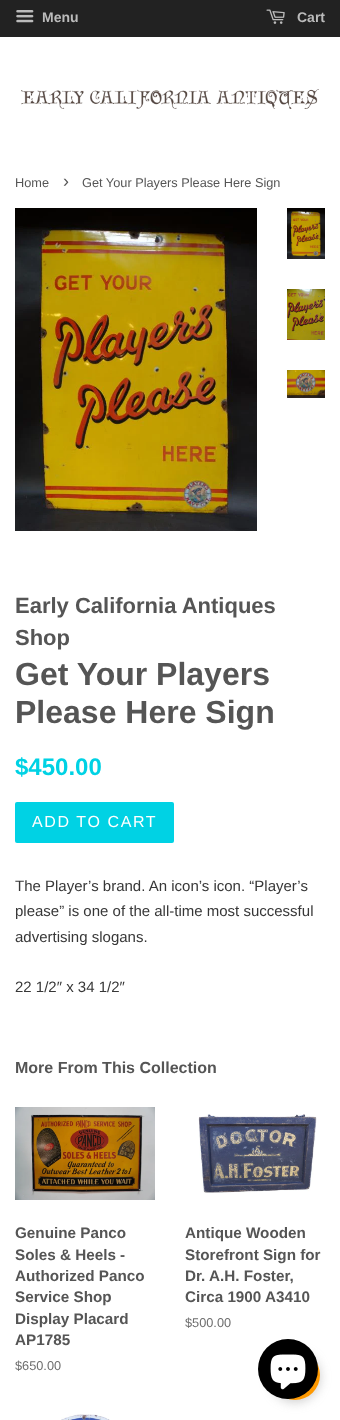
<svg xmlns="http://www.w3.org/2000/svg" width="340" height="1420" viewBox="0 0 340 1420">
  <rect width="100%" height="100%" fill="rgb(255,255,255)"/>
  <rect x="0" y="0" width="340" height="37" fill="rgb(34,34,34)"/>
  <image x="16" y="10" width="18" height="13" href="pic1.png"/>
  <text x="42" y="22" font-family="Liberation Sans" font-size="14" font-weight="bold" fill="rgb(187,187,187)">Menu</text>
  <image x="266" y="9" width="19" height="15" href="pic2.png"/>
  <text x="297" y="22" font-family="Liberation Sans" font-size="14" font-weight="bold" fill="rgb(187,187,187)">Cart</text>
  <image x="21" y="89" width="298" height="20" href="pic3.png"/>
  <text x="15" y="187" font-family="Liberation Sans" font-size="12.75" fill="rgb(85,85,85)">Home</text>
  <text x="63" y="187" font-family="Liberation Sans" font-size="18" fill="rgb(85,85,85)">›</text>
  <text x="82" y="187" font-family="Liberation Sans" font-size="12.75" fill="rgb(85,85,85)">Get Your Players Please Here Sign</text>
  <image x="15" y="208" width="242" height="323" href="pic4.png"/>
  <image x="287" y="208" width="38" height="51" href="pic5.png"/>
  <image x="287" y="289" width="38" height="51" href="pic6.png"/>
  <image x="287" y="370" width="38" height="28" href="pic7.png"/>
  <g font-family="Liberation Sans" font-size="22" font-weight="bold" fill="rgb(85,85,85)">
    <text>
      <tspan x="15" y="613">Early California Antiques</tspan>
      <tspan x="15" y="645">Shop</tspan>
    </text>
  </g>
  <g font-family="Liberation Sans" font-size="32" font-weight="bold" fill="rgb(85,85,85)">
    <text>
      <tspan x="15" y="685">Get Your Players</tspan>
      <tspan x="15" y="723">Please Here Sign</tspan>
    </text>
  </g>
  <text x="15" y="775" font-family="Liberation Sans" font-size="24" font-weight="bold" fill="rgb(0,210,228)">$450.00</text>
  <rect x="15" y="802" width="159" height="41" rx="2" fill="rgb(0,210,228)"/>
  <text x="32" y="827" font-family="Liberation Sans" font-size="16" letter-spacing="1.6" fill="rgb(255,255,255)">ADD TO CART</text>
  <g font-family="Liberation Sans" font-size="15" fill="rgb(55,55,55)">
    <text>
      <tspan x="15" y="891">The Player’s brand. An icon’s icon. “Player’s</tspan>
      <tspan x="15" y="916">please” is one of the all-time most successful</tspan>
      <tspan x="15" y="942">advertising slogans.</tspan>
    </text>
    <text x="15" y="992">22 1/2″ x 34 1/2″</text>
  </g>
  <text x="15" y="1073" font-family="Liberation Sans" font-size="16" font-weight="bold" fill="rgb(85,85,85)">More From This Collection</text>
  <image x="15" y="1107" width="140" height="93" href="pic8.png"/>
  <g font-family="Liberation Sans" font-size="15.25" font-weight="bold" fill="rgb(85,85,85)">
    <text>
      <tspan x="15" y="1238">Genuine Panco</tspan>
      <tspan x="15" y="1260">Soles &amp; Heels -</tspan>
      <tspan x="15" y="1281">Authorized Panco</tspan>
      <tspan x="15" y="1302">Service Shop</tspan>
      <tspan x="15" y="1324">Display Placard</tspan>
      <tspan x="15" y="1345">AP1785</tspan>
    </text>
  </g>
  <text x="15" y="1370" font-family="Liberation Sans" font-size="12.75" fill="rgb(110,110,110)">$650.00</text>
  <image x="198" y="1114" width="119" height="79" href="pic9.png"/>
  <g font-family="Liberation Sans" font-size="15.25" font-weight="bold" fill="rgb(85,85,85)">
    <text>
      <tspan x="185" y="1238">Antique Wooden</tspan>
      <tspan x="185" y="1260">Storefront Sign for</tspan>
      <tspan x="185" y="1281">Dr. A.H. Foster,</tspan>
      <tspan x="185" y="1302">Circa 1900 A3410</tspan>
    </text>
  </g>
  <text x="185" y="1327" font-family="Liberation Sans" font-size="12.75" fill="rgb(110,110,110)">$500.00</text>
  <image x="61" y="1414" width="49" height="6" href="pic10.png"/>
  <rect x="270" y="1352" width="50" height="50" rx="25" fill="rgba(128,128,128,0.4)" filter="blur(5.5px)"/>
  <circle cx="295" cy="1375" r="25" fill="rgb(255,153,0)"/>
  <circle cx="288" cy="1369" r="30" fill="rgb(0,0,0)"/>
  <image x="270" y="1354" width="36" height="36" href="pic11.png"/>
</svg>
